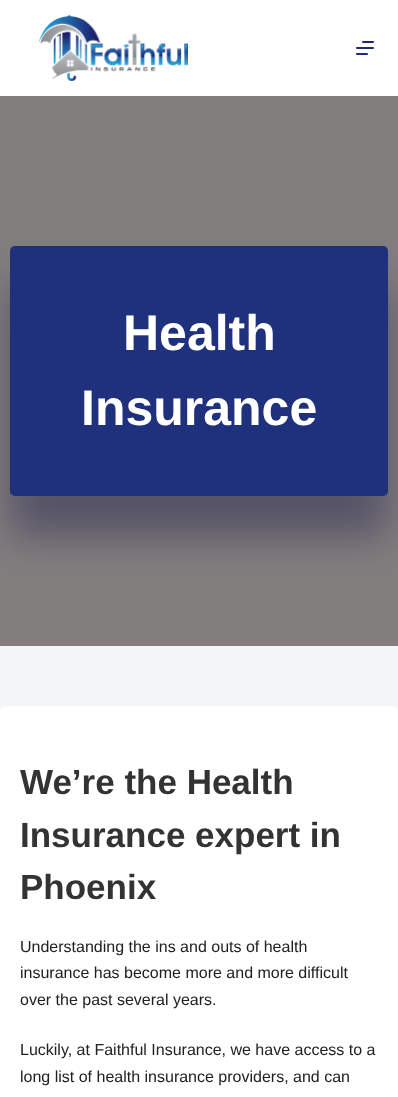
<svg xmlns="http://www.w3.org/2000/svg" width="398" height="1097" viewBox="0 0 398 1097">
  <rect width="100%" height="100%" fill="rgb(130,126,126)"/>
  <rect x="0" y="0" width="398" height="96" fill="rgb(255,255,255)"/>
  <image x="39" y="15" width="149" height="66" href="pic1.png"/>
  <rect x="362" y="41" width="12" height="2" rx="1" fill="rgb(29,41,118)"/>
  <rect x="356" y="47" width="18" height="2" rx="1" fill="rgb(29,41,118)"/>
  <rect x="356" y="53" width="12" height="2" rx="1" fill="rgb(29,41,118)"/>
  <rect x="10" y="286" width="378" height="250" rx="5" fill="rgba(28,25,73,0.43)" filter="blur(20px)"/>
  <rect x="10" y="246" width="378" height="250" rx="5" fill="rgb(31,48,124)"/>
  <g font-family="Liberation Sans" font-size="50" font-weight="bold" fill="rgb(255,255,255)">
    <text x="123" y="350">Health</text>
    <text x="81" y="425">Insurance</text>
  </g>
  <rect x="0" y="646" width="398" height="65" fill="rgb(243,245,249)"/>
  <rect x="0" y="706" width="398" height="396" rx="5" fill="rgb(255,255,255)"/>
  <g font-family="Liberation Sans" font-size="35" font-weight="bold" fill="rgb(51,51,51)">
    <text>
      <tspan x="20" y="794">We’re the Health</tspan>
      <tspan x="20" y="847">Insurance expert in</tspan>
      <tspan x="20" y="899">Phoenix</tspan>
    </text>
  </g>
  <g font-family="Liberation Sans" font-size="16" fill="rgb(33,33,33)">
    <text>
      <tspan x="20" y="952">Understanding the ins and outs of health</tspan>
      <tspan x="20" y="978">insurance has become more and more difficult</tspan>
      <tspan x="20" y="1005">over the past several years.</tspan>
    </text>
    <text>
      <tspan x="20" y="1055">Luckily, at Faithful Insurance, we have access to a</tspan>
      <tspan x="20" y="1082">long list of health insurance providers, and can</tspan>
    </text>
  </g>
</svg>
